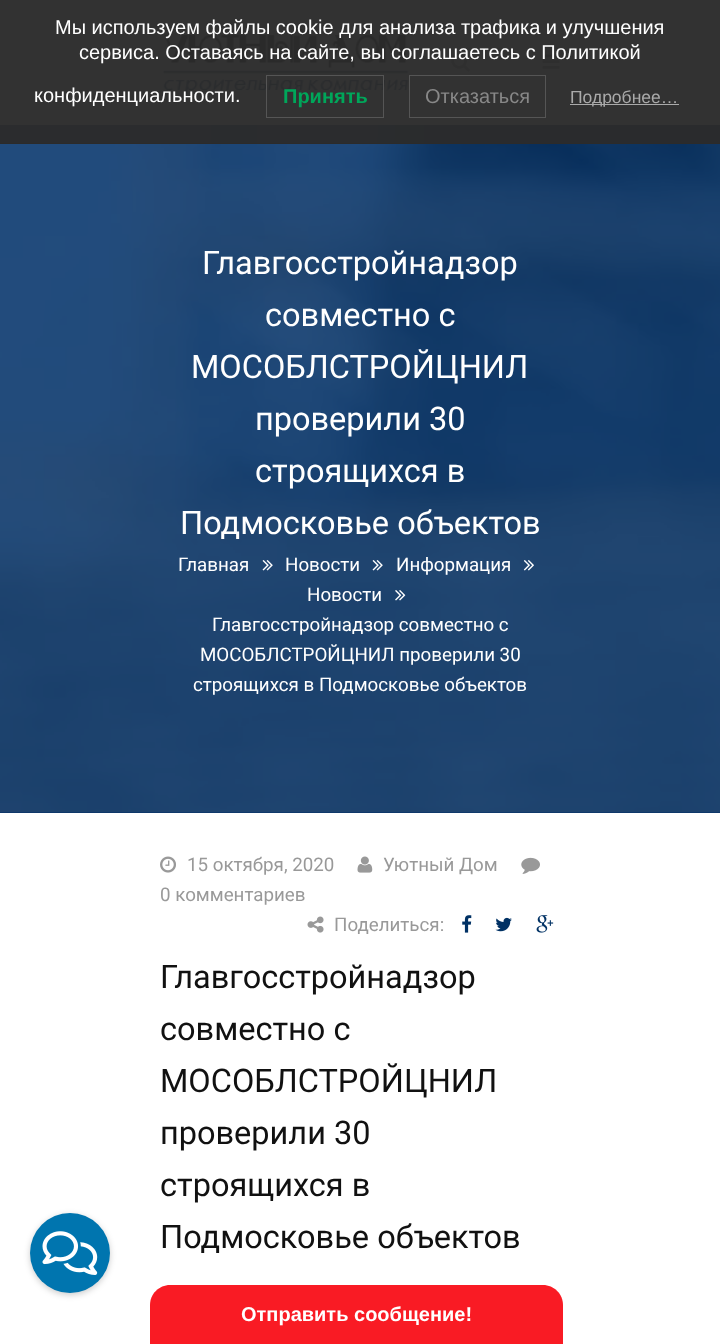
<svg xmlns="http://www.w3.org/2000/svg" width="720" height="1344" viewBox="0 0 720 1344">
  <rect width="100%" height="100%" fill="rgb(255,255,255)"/>
  <image x="162" y="28" width="247" height="69" href="pic2.png"/>
  <image x="451" y="53" width="19" height="19" href="pic3.png"/>
  <image x="542" y="54" width="18" height="15" href="pic4.png"/>
  <rect x="0" y="812" width="720" height="1" fill="rgb(0,47,102)"/>
  <image x="0" y="125" width="720" height="688" href="pic5.png"/>
  <rect x="0" y="0" width="720" height="143" fill="rgba(43,43,43,0.97)"/>
  <rect x="0" y="143" width="720" height="1" fill="rgb(43,43,43)"/>
  <g font-family="Liberation Sans" font-size="20" fill="rgb(255,255,255)">
    <text x="55" y="34">Мы используем файлы cookie для анализа трафика и улучшения</text>
    <text x="79" y="59">сервиса. Оставаясь на сайте, вы соглашаетесь с Политикой</text>
    <text x="34" y="102">конфиденциальности.</text>
  </g>
  <rect x="266.5" y="75.5" width="117" height="42" fill="none" stroke="rgb(85,85,85)"/>
  <text x="283" y="103" font-family="Liberation Sans" font-size="20" font-weight="bold" fill="rgb(0,166,90)">Принять</text>
  <rect x="409.5" y="75.5" width="136" height="42" fill="none" stroke="rgb(85,85,85)"/>
  <text x="425" y="103" font-family="Liberation Sans" font-size="20" fill="rgb(136,136,136)">Отказаться</text>
  <rect x="570" y="104" width="109" height="1" fill="rgb(170,170,170)"/>
  <text x="570" y="103" font-family="Liberation Sans" font-size="17.5" fill="rgb(170,170,170)">Подробнее…</text>
  <rect x="30" y="1215" width="80" height="80" rx="40" fill="rgba(0,0,0,0.2)" filter="blur(3px)"/>
  <circle cx="70" cy="1253" r="40" fill="rgb(0,117,175)"/>
  <image x="42" y="1231" width="56" height="44" href="pic1.png"/>
  <g font-family="Roboto" font-size="32.5" fill="rgb(255,255,255)">
    <text x="202" y="274">Главгосстройнадзор</text>
    <text x="265" y="326">совместно с</text>
    <text x="191" y="378">МОСОБЛСТРОЙЦНИЛ</text>
    <text>
      <tspan x="255" y="430">проверили 30</tspan>
      <tspan x="255" y="482">строящихся в</tspan>
    </text>
    <text x="180" y="534">Подмосковье объектов</text>
  </g>
  <text x="178" y="571" font-family="Roboto" font-size="18.75" fill="rgb(255,255,255)">Главная</text>
  <image x="262" y="560" width="11" height="11" href="pic6.png"/>
  <text x="285" y="571" font-family="Roboto" font-size="18.75" fill="rgb(255,255,255)">Новости</text>
  <image x="372" y="560" width="11" height="11" href="pic7.png"/>
  <text x="396" y="571" font-family="Roboto" font-size="18.75" fill="rgb(255,255,255)">Информация</text>
  <image x="523" y="560" width="11" height="11" href="pic8.png"/>
  <text x="307" y="601" font-family="Roboto" font-size="18.75" fill="rgb(255,255,255)">Новости</text>
  <image x="395" y="590" width="11" height="11" href="pic9.png"/>
  <g font-family="Roboto" font-size="18.75" fill="rgb(255,255,255)">
    <text x="212" y="631">Главгосстройнадзор совместно с</text>
    <text x="200" y="661">МОСОБЛСТРОЙЦНИЛ проверили 30</text>
    <text x="193" y="691">строящихся в Подмосковье объектов</text>
  </g>
  <image x="160" y="856" width="16" height="17" href="pic10.png"/>
  <text x="187" y="871" font-family="Roboto" font-size="18.75" fill="rgb(153,153,153)">15 октября, 2020</text>
  <image x="357" y="856" width="16" height="17" href="pic11.png"/>
  <text x="383" y="871" font-family="Roboto" font-size="18.75" fill="rgb(153,153,153)">Уютный Дом</text>
  <image x="521" y="857" width="19" height="17" href="pic12.png"/>
  <text x="160" y="901" font-family="Roboto" font-size="18.75" fill="rgb(153,153,153)">0 комментариев</text>
  <image x="307" y="916" width="17" height="17" href="pic13.png"/>
  <text x="334" y="931" font-family="Roboto" font-size="18.75" fill="rgb(153,153,153)">Поделиться:</text>
  <image x="462" y="915" width="10" height="18" href="pic14.png"/>
  <image x="495" y="917" width="17" height="15" href="pic15.png"/>
  <image x="536" y="915" width="18" height="18" href="pic16.png"/>
  <g font-family="Roboto" font-size="32.5" fill="rgb(17,17,17)">
    <text>
      <tspan x="160" y="988">Главгосстройнадзор</tspan>
      <tspan x="160" y="1040">совместно с</tspan>
      <tspan x="160" y="1092">МОСОБЛСТРОЙЦНИЛ</tspan>
      <tspan x="160" y="1144">проверили 30</tspan>
      <tspan x="160" y="1196">строящихся в</tspan>
      <tspan x="160" y="1248">Подмосковье объектов</tspan>
    </text>
  </g>
  <path d="M170 1285H543C554 1285 563 1294 563 1305V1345H150V1305C150 1294 159 1285 170 1285Z" fill="rgb(249,27,36)"/>
  <text x="241" y="1321" font-family="Liberation Sans" font-size="20" font-weight="bold" fill="rgb(255,255,255)">Отправить сообщение!</text>
</svg>
